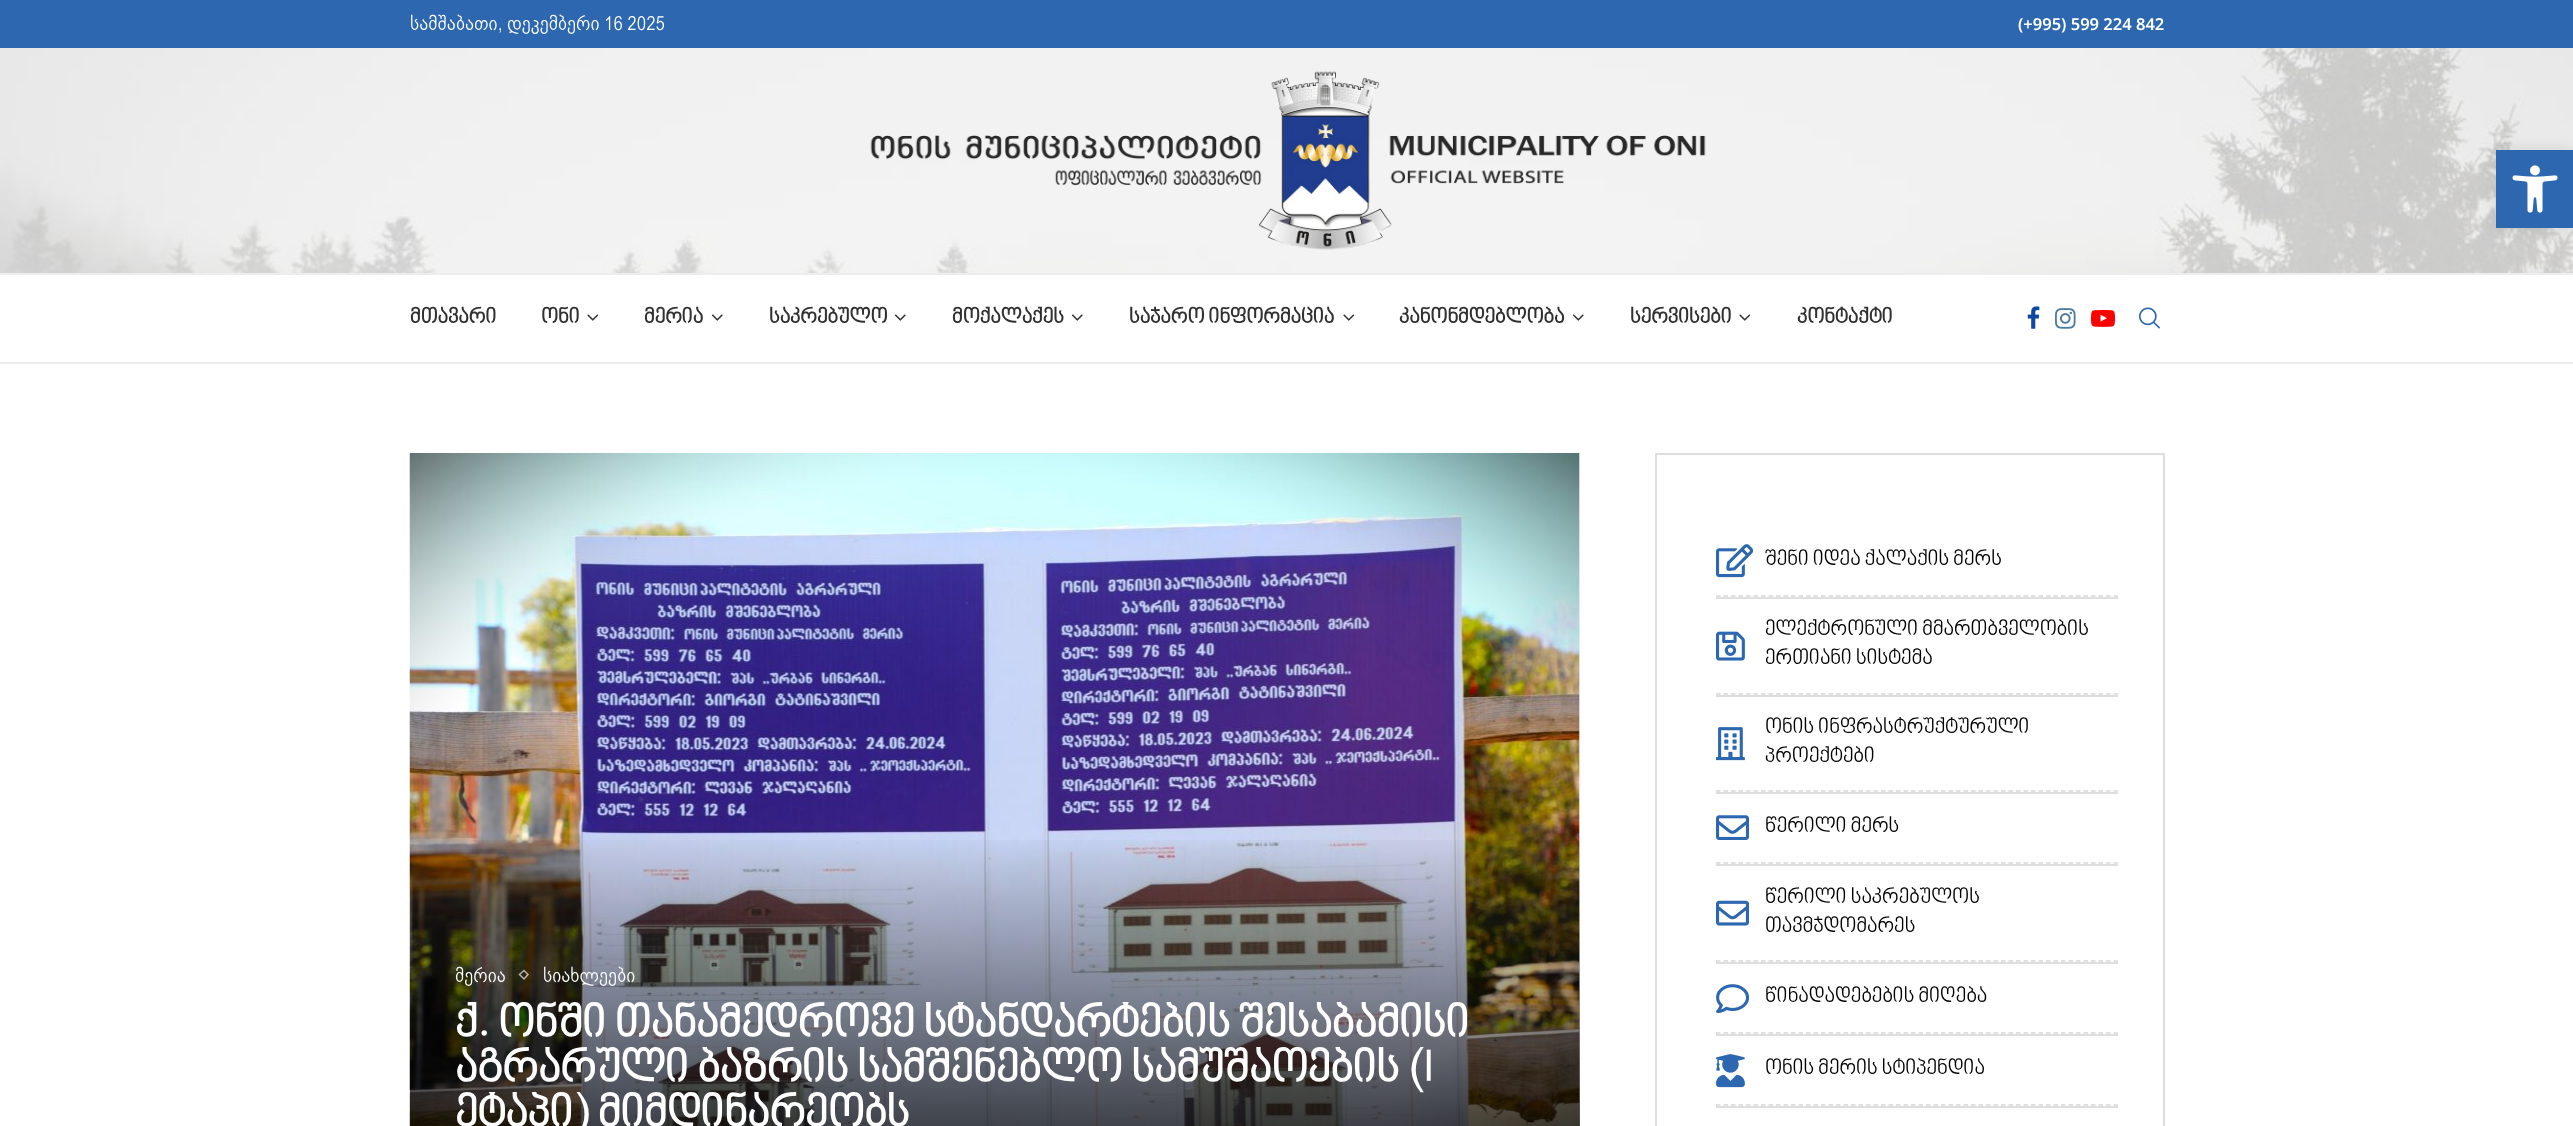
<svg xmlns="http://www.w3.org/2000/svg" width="2573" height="1126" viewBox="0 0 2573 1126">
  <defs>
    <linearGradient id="g1" gradientUnits="userSpaceOnUse" x1="995" y1="453" x2="995" y2="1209"><stop offset="0.5" stop-color="rgb(0,0,0)" stop-opacity="0"/><stop offset="0.9" stop-color="rgb(0,0,0)" stop-opacity="0.7"/></linearGradient>
  </defs>
  <rect width="100%" height="100%" fill="rgb(255,255,255)"/>
  <rect x="0" y="0" width="2573" height="48" fill="rgb(44,103,176)"/>
  <text x="410" y="30" font-family="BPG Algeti" font-size="19.5" fill="rgb(255,255,255)">სამშაბათი, დეკემბერი 16 2025</text>
  <text x="2018" y="30" font-family="Noto Sans" font-size="16.5" font-weight="600" fill="rgb(255,255,255)">(+995) 599 224 842</text>
  <rect x="0" y="48" width="2573" height="225" fill="rgb(245,245,245)"/>
  <image x="0" y="48" width="2573" height="225" href="pic1.png"/>
  <image x="870" y="71" width="836" height="179" href="pic2.png"/>
  <rect x="0" y="273" width="2573" height="2" fill="rgb(237,237,237)"/>
  <rect x="0" y="362" width="2573" height="2" fill="rgb(237,237,237)"/>
  <g font-family="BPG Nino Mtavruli" font-size="21" font-weight="bold" fill="rgb(49,49,49)">
    <text x="410" y="324">მთავარი</text>
    <text x="541" y="324">ონი</text>
  </g>
  <image x="587" y="314" width="12" height="7" href="pic3.png"/>
  <text x="644" y="324" font-family="BPG Nino Mtavruli" font-size="21" font-weight="bold" fill="rgb(49,49,49)">მერია</text>
  <image x="711" y="314" width="12" height="7" href="pic4.png"/>
  <text x="769" y="324" font-family="BPG Nino Mtavruli" font-size="21" font-weight="bold" fill="rgb(49,49,49)">საკრებულო</text>
  <image x="894" y="314" width="12" height="7" href="pic4.png"/>
  <text x="952" y="324" font-family="BPG Nino Mtavruli" font-size="21" font-weight="bold" fill="rgb(49,49,49)">მოქალაქეს</text>
  <image x="1071" y="314" width="12" height="7" href="pic4.png"/>
  <text x="1129" y="324" font-family="BPG Nino Mtavruli" font-size="21" font-weight="bold" fill="rgb(49,49,49)">საჯარო ინფორმაცია</text>
  <image x="1343" y="314" width="12" height="7" href="pic3.png"/>
  <text x="1399" y="324" font-family="BPG Nino Mtavruli" font-size="21" font-weight="bold" fill="rgb(49,49,49)">კანონმდებლობა</text>
  <image x="1572" y="314" width="12" height="7" href="pic4.png"/>
  <text x="1630" y="324" font-family="BPG Nino Mtavruli" font-size="21" font-weight="bold" fill="rgb(49,49,49)">სერვისები</text>
  <image x="1739" y="314" width="12" height="7" href="pic3.png"/>
  <text x="1797" y="324" font-family="BPG Nino Mtavruli" font-size="21" font-weight="bold" fill="rgb(49,49,49)">კონტაქტი</text>
  <image x="2027" y="306" width="13" height="23" href="pic5.png"/>
  <image x="2055" y="308" width="21" height="21" href="pic6.png"/>
  <image x="2091" y="310" width="24" height="17" href="pic7.png"/>
  <image x="2139" y="307" width="21" height="22" href="pic8.png"/>
  <rect x="1579" y="453" width="1" height="673" fill="rgb(245,245,245)"/>
  <image x="409" y="453" width="1171" height="673" href="pic9.png"/>
  <rect x="410" y="840" width="1170" height="286" fill="url(#g1)"/>
  <text x="455" y="982" font-family="BPG Algeti" font-size="19.5" fill="rgb(255,255,255)">მერია</text>
  <path d="M524 970.5L528 974.5L524 979L519.5 974.5Z" fill="none" stroke="rgba(255,255,255,0.65)" stroke-width="1.5"/>
  <text x="543" y="982" font-family="BPG Algeti" font-size="19.5" fill="rgb(255,255,255)">სიახლეები</text>
  <g font-family="BPG Nino Mtavruli" font-size="45" font-weight="bold" fill="rgb(255,255,255)">
    <text>
      <tspan x="455" y="1039">ქ. ონში თანამედროვე სტანდარტების შესაბამისი</tspan>
      <tspan x="455" y="1084">აგრარული ბაზრის სამშენებლო სამუშაოების (I</tspan>
      <tspan x="455" y="1129">ეტაპი) მიმდინარეობს</tspan>
    </text>
  </g>
  <rect x="1656" y="454" width="508" height="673" fill="none" stroke="rgb(222,222,222)" stroke-width="2"/>
  <rect x="1716" y="597" width="402" height="2" fill="rgb(222,222,222)"/>
  <image x="1716" y="544" width="38" height="34" href="pic10.png"/>
  <text x="1765" y="566" font-family="BPG Nino Mtavruli" font-size="21" fill="rgb(0,0,0)">შენი იდეა ქალაქის მერს</text>
  <path d="M1716 596H2118" fill="none" stroke="rgb(216,216,216)" stroke-width="1.5" stroke-dasharray="4.5 3"/>
  <rect x="1716" y="695" width="402" height="2" fill="rgb(222,222,222)"/>
  <image x="1716" y="631" width="29" height="30" href="pic11.png"/>
  <g font-family="BPG Nino Mtavruli" font-size="21" fill="rgb(0,0,0)">
    <text>
      <tspan x="1765" y="636">ელექტრონული მმართბველობის</tspan>
      <tspan x="1765" y="665">ერთიანი სისტემა</tspan>
    </text>
  </g>
  <path d="M1716 694H2118" fill="none" stroke="rgb(216,216,216)" stroke-width="1.5" stroke-dasharray="4.5 3"/>
  <rect x="1716" y="792" width="402" height="2" fill="rgb(222,222,222)"/>
  <image x="1716" y="727" width="29" height="34" href="pic12.png"/>
  <g font-family="BPG Nino Mtavruli" font-size="21" fill="rgb(0,0,0)">
    <text>
      <tspan x="1765" y="734">ონის ინფრასტრუქტურული</tspan>
      <tspan x="1765" y="763">პროექტები</tspan>
    </text>
  </g>
  <path d="M1716 791H2118" fill="none" stroke="rgb(216,216,216)" stroke-width="1.5" stroke-dasharray="4.5 3"/>
  <rect x="1716" y="864" width="402" height="2" fill="rgb(222,222,222)"/>
  <image x="1716" y="815" width="33" height="25" href="pic13.png"/>
  <text x="1765" y="833" font-family="BPG Nino Mtavruli" font-size="21" fill="rgb(0,0,0)">წერილი მერს</text>
  <path d="M1716 863H2118" fill="none" stroke="rgb(216,216,216)" stroke-width="1.5" stroke-dasharray="4.5 3"/>
  <rect x="1716" y="962" width="402" height="2" fill="rgb(222,222,222)"/>
  <image x="1716" y="900" width="33" height="26" href="pic14.png"/>
  <g font-family="BPG Nino Mtavruli" font-size="21" fill="rgb(0,0,0)">
    <text>
      <tspan x="1765" y="904">წერილი საკრებულოს</tspan>
      <tspan x="1765" y="933">თავმჯდომარეს</tspan>
    </text>
  </g>
  <path d="M1716 961H2118" fill="none" stroke="rgb(216,216,216)" stroke-width="1.5" stroke-dasharray="4.5 3"/>
  <rect x="1716" y="1034" width="402" height="2" fill="rgb(222,222,222)"/>
  <image x="1716" y="984" width="34" height="30" href="pic15.png"/>
  <text x="1765" y="1003" font-family="BPG Nino Mtavruli" font-size="21" fill="rgb(0,0,0)">წინადადებების მიღება</text>
  <path d="M1716 1033H2118" fill="none" stroke="rgb(216,216,216)" stroke-width="1.5" stroke-dasharray="4.5 3"/>
  <rect x="1716" y="1106" width="402" height="2" fill="rgb(222,222,222)"/>
  <image x="1716" y="1054" width="29" height="34" href="pic16.png"/>
  <text x="1765" y="1075" font-family="BPG Nino Mtavruli" font-size="21" fill="rgb(0,0,0)">ონის მერის სტიპენდია</text>
  <path d="M1716 1105H2118" fill="none" stroke="rgb(216,216,216)" stroke-width="1.5" stroke-dasharray="4.5 3"/>
  <rect x="2496" y="150" width="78" height="78" fill="rgba(0,0,0,0.1)" filter="blur(7.5px)"/>
  <rect x="2496" y="150" width="77" height="78" fill="rgb(44,103,176)"/>
  <image x="2512" y="165" width="46" height="48" href="pic17.png"/>
</svg>
